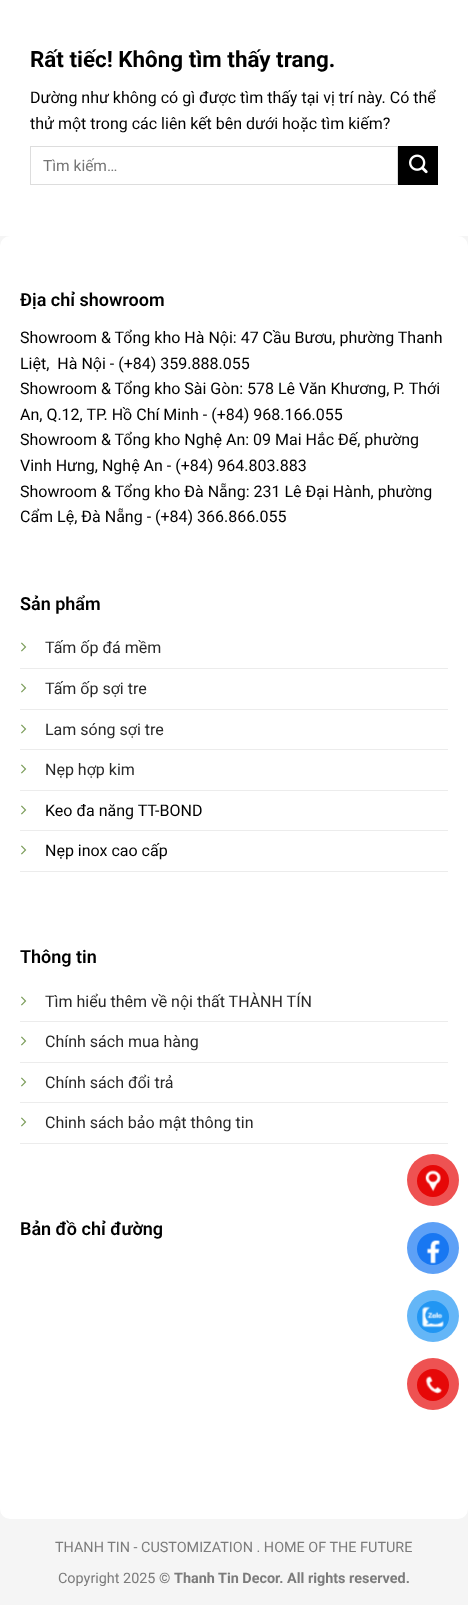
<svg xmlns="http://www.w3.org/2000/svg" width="468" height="1605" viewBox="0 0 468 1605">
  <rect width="100%" height="100%" fill="rgb(255,255,255)"/>
  <text x="30" y="67" font-family="Roboto" font-size="22.4" font-weight="bold" fill="rgb(0,0,0)">Rất tiếc! Không tìm thấy trang.</text>
  <g font-family="Roboto" font-size="16" fill="rgb(0,0,0)">
    <text>
      <tspan x="30" y="103">Dường như không có gì được tìm thấy tại vị trí này. Có thể</tspan>
      <tspan x="30" y="129">thử một trong các liên kết bên dưới hoặc tìm kiếm?</tspan>
    </text>
  </g>
  <rect x="30.5" y="146.5" width="367" height="38" fill="none" stroke="rgb(221,221,221)"/>
  <text x="43" y="171" font-family="Roboto" font-size="15.5" fill="rgb(117,117,117)">Tìm kiếm…</text>
  <rect x="398" y="146" width="40" height="39" fill="rgb(0,0,0)"/>
  <image x="409" y="154" width="19" height="20" href="pic1.png"/>
  <rect x="0" y="236" width="468" height="1369" fill="rgb(245,245,245)"/>
  <rect x="0" y="236" width="468" height="1283" rx="10" fill="rgb(255,255,255)"/>
  <text x="20" y="306" font-family="Roboto" font-size="18" font-weight="600" fill="rgb(0,0,0)">Địa chỉ showroom</text>
  <g font-family="Roboto" font-size="16" fill="rgb(0,0,0)">
    <text xml:space="preserve"><tspan x="20" y="343">Showroom &amp; Tổng kho Hà Nội: 47 Cầu Bươu, phường Thanh</tspan><tspan x="20" y="369">Liệt,  Hà Nội - (+84) 359.888.055</tspan><tspan x="20" y="394">Showroom &amp; Tổng kho Sài Gòn: 578 Lê Văn Khương, P. Thới</tspan><tspan x="20" y="420">An, Q.12, TP. Hồ Chí Minh - (+84) 968.166.055</tspan><tspan x="20" y="445">Showroom &amp; Tổng kho Nghệ An: 09 Mai Hắc Đế, phường</tspan><tspan x="20" y="471">Vinh Hưng, Nghệ An - (+84) 964.803.883</tspan><tspan x="20" y="497">Showroom &amp; Tổng kho Đà Nẵng: 231 Lê Đại Hành, phường</tspan><tspan x="20" y="522">Cẩm Lệ, Đà Nẵng - (+84) 366.866.055</tspan></text>
  </g>
  <text x="20" y="610" font-family="Roboto" font-size="18" font-weight="600" fill="rgb(0,0,0)">Sản phẩm</text>
  <rect x="20" y="668" width="428" height="1" fill="rgb(236,236,236)"/>
  <image x="21" y="642" width="6" height="10" href="pic2.png"/>
  <text x="45" y="653" font-family="Roboto" font-size="16" fill="rgb(40,40,40)">Tấm ốp đá mềm</text>
  <rect x="20" y="709" width="428" height="1" fill="rgb(236,236,236)"/>
  <image x="21" y="683" width="6" height="10" href="pic2.png"/>
  <text x="45" y="694" font-family="Roboto" font-size="16" fill="rgb(40,40,40)">Tấm ốp sợi tre</text>
  <rect x="20" y="749" width="428" height="1" fill="rgb(236,236,236)"/>
  <image x="21" y="724" width="6" height="10" href="pic2.png"/>
  <text x="45" y="735" font-family="Roboto" font-size="16" fill="rgb(40,40,40)">Lam sóng sợi tre</text>
  <rect x="20" y="790" width="428" height="1" fill="rgb(236,236,236)"/>
  <image x="21" y="764" width="6" height="10" href="pic2.png"/>
  <text x="45" y="775" font-family="Roboto" font-size="16" fill="rgb(40,40,40)">Nẹp hợp kim</text>
  <rect x="20" y="830" width="428" height="1" fill="rgb(236,236,236)"/>
  <image x="21" y="805" width="6" height="10" href="pic2.png"/>
  <text x="45" y="816" font-family="Roboto" font-size="16" fill="rgb(0,0,0)">Keo đa năng TT-BOND</text>
  <rect x="20" y="871" width="428" height="1" fill="rgb(236,236,236)"/>
  <image x="21" y="845" width="6" height="10" href="pic2.png"/>
  <text x="45" y="856" font-family="Roboto" font-size="16" fill="rgb(0,0,0)">Nẹp inox cao cấp</text>
  <text x="20" y="963" font-family="Roboto" font-size="18" font-weight="600" fill="rgb(0,0,0)">Thông tin</text>
  <rect x="20" y="1021" width="428" height="1" fill="rgb(236,236,236)"/>
  <image x="21" y="996" width="6" height="10" href="pic2.png"/>
  <text x="45" y="1007" font-family="Roboto" font-size="16" fill="rgb(40,40,40)">Tìm hiểu thêm về nội thất THÀNH TÍN</text>
  <rect x="20" y="1062" width="428" height="1" fill="rgb(236,236,236)"/>
  <image x="21" y="1036" width="6" height="10" href="pic2.png"/>
  <text x="45" y="1047" font-family="Roboto" font-size="16" fill="rgb(40,40,40)">Chính sách mua hàng</text>
  <rect x="20" y="1102" width="428" height="1" fill="rgb(236,236,236)"/>
  <image x="21" y="1077" width="6" height="10" href="pic2.png"/>
  <text x="45" y="1088" font-family="Roboto" font-size="16" fill="rgb(40,40,40)">Chính sách đổi trả</text>
  <rect x="20" y="1143" width="428" height="1" fill="rgb(236,236,236)"/>
  <image x="21" y="1117" width="6" height="10" href="pic2.png"/>
  <text x="45" y="1128" font-family="Roboto" font-size="16" fill="rgb(40,40,40)">Chinh sách bảo mật thông tin</text>
  <text x="20" y="1235" font-family="Roboto" font-size="18" font-weight="600" fill="rgb(0,0,0)">Bản đồ chỉ đường</text>
  <g font-family="Roboto" font-size="14.4" fill="rgb(123,123,123)">
    <text x="55" y="1552">THANH TIN - CUSTOMIZATION . HOME OF THE FUTURE</text>
    <text x="58" y="1583">Copyright 2025 ©</text>
  </g>
  <text x="174" y="1583" font-family="Roboto" font-size="14.4" font-weight="bold" fill="rgb(123,123,123)">Thanh Tin Decor. All rights reserved.</text>
  <circle cx="433" cy="1180" r="26" fill="rgb(238,82,82)"/>
  <circle cx="433" cy="1181" r="16" fill="rgb(230,8,8)"/>
  <image x="425" y="1170" width="16" height="22" href="pic3.png"/>
  <circle cx="433" cy="1248" r="26" fill="rgb(93,160,246)"/>
  <circle cx="433" cy="1249" r="16" fill="rgb(24,119,242)"/>
  <image x="426" y="1240" width="15" height="24" href="pic4.png"/>
  <circle cx="433" cy="1316" r="26" fill="rgb(100,182,247)"/>
  <circle cx="433" cy="1317" r="16" fill="rgb(33,150,243)"/>
  <image x="421" y="1306" width="23" height="22" href="pic5.png"/>
  <circle cx="433" cy="1384" r="26" fill="rgb(238,82,82)"/>
  <circle cx="433" cy="1385" r="16" fill="rgb(230,8,8)"/>
  <image x="425" y="1376" width="18" height="18" href="pic6.png"/>
</svg>
